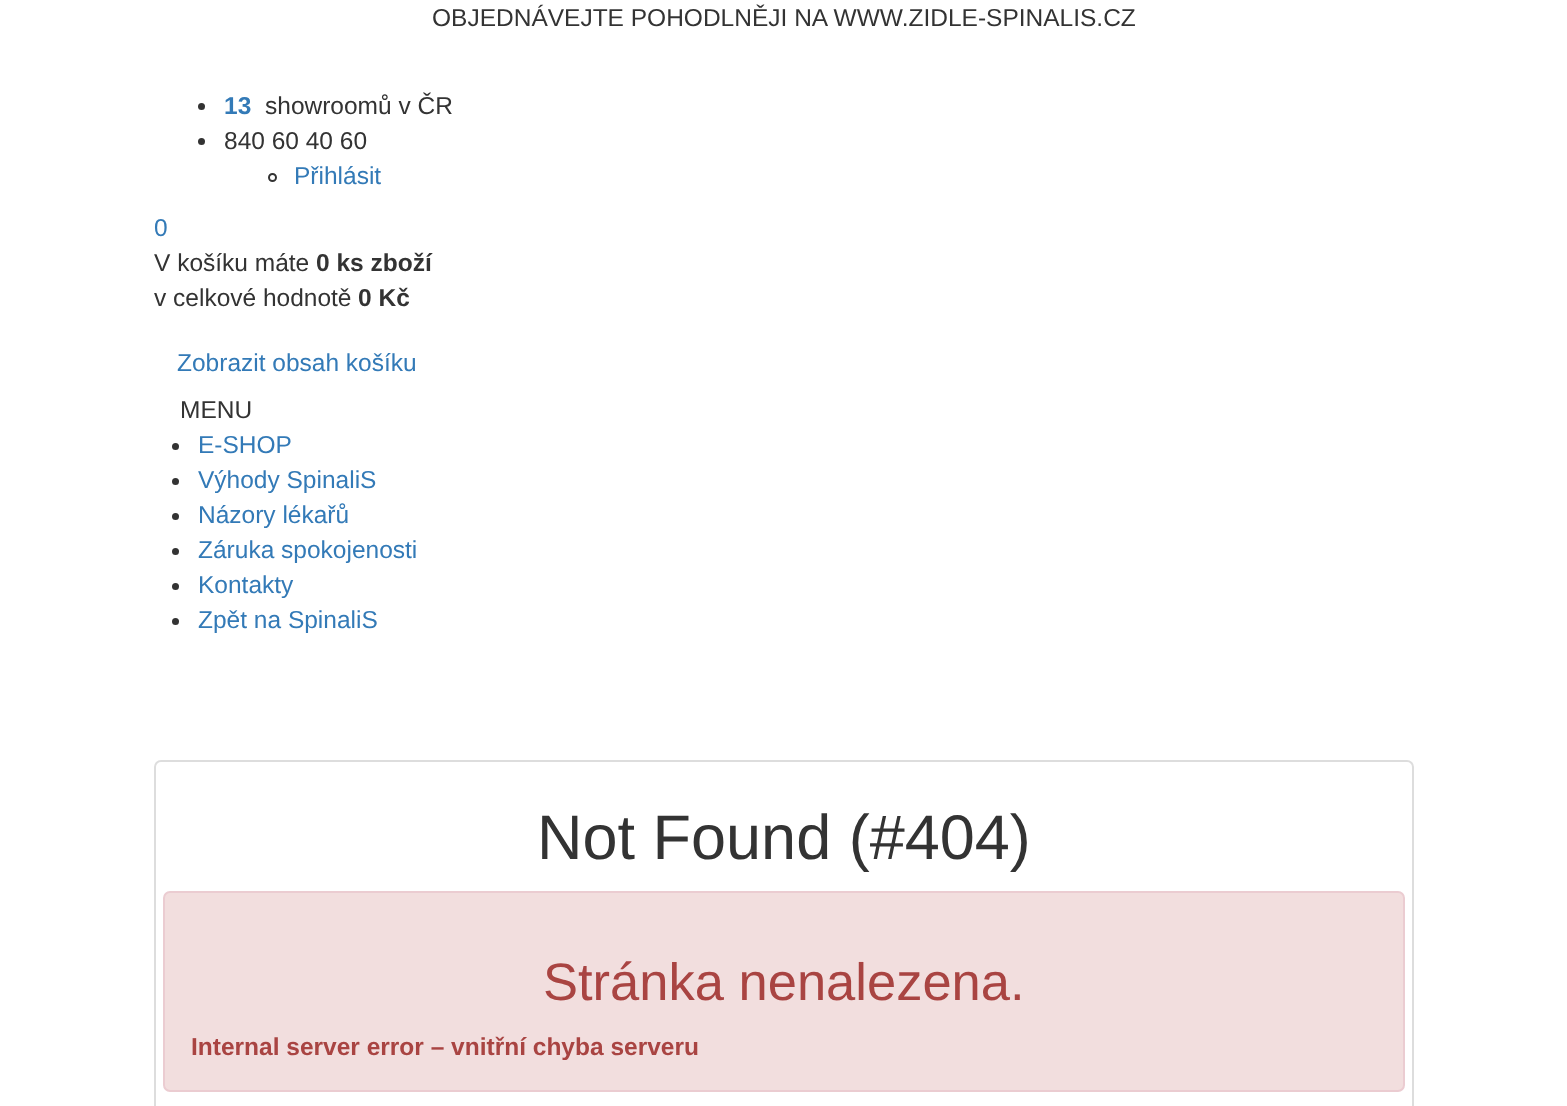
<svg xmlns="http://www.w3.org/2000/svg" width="1567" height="1106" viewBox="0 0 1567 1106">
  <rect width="100%" height="100%" fill="rgb(255,255,255)"/>
  <text x="432" y="26" font-family="Liberation Sans" font-size="24.5" fill="rgb(51,51,51)">OBJEDNÁVEJTE POHODLNĚJI NA WWW.ZIDLE-SPINALIS.CZ</text>
  <circle cx="201.5" cy="106.5" r="3.5" fill="rgb(51,51,51)"/>
  <text x="224" y="114" font-family="Liberation Sans" font-size="24.5" font-weight="bold" fill="rgb(51,122,183)">13</text>
  <text x="265" y="114" font-family="Liberation Sans" font-size="24.5" fill="rgb(51,51,51)">showroomů v ČR</text>
  <circle cx="201.5" cy="141.5" r="3.5" fill="rgb(51,51,51)"/>
  <text x="224" y="149" font-family="Liberation Sans" font-size="24.5" fill="rgb(51,51,51)">840 60 40 60</text>
  <circle cx="272.5" cy="177.5" r="3.5" fill="none" stroke="rgb(51,51,51)" stroke-width="2"/>
  <g font-family="Liberation Sans" font-size="24.5" fill="rgb(51,122,183)">
    <text x="294" y="184">Přihlásit</text>
    <text x="154" y="236">0</text>
  </g>
  <text x="154" y="271" font-family="Liberation Sans" font-size="24.5" fill="rgb(51,51,51)">V košíku máte</text>
  <text x="316" y="271" font-family="Liberation Sans" font-size="24.5" font-weight="bold" fill="rgb(51,51,51)">0 ks zboží</text>
  <text x="154" y="306" font-family="Liberation Sans" font-size="24.5" fill="rgb(51,51,51)">v celkové hodnotě</text>
  <text x="358" y="306" font-family="Liberation Sans" font-size="24.5" font-weight="bold" fill="rgb(51,51,51)">0 Kč</text>
  <text x="177" y="371" font-family="Liberation Sans" font-size="24.5" fill="rgb(51,122,183)">Zobrazit obsah košíku</text>
  <text x="180" y="418" font-family="Liberation Sans" font-size="24.5" fill="rgb(51,51,51)">MENU</text>
  <circle cx="175.5" cy="446.5" r="3.5" fill="rgb(51,51,51)"/>
  <text x="198" y="453" font-family="Liberation Sans" font-size="24.5" fill="rgb(51,122,183)">E-SHOP</text>
  <circle cx="175.5" cy="481.5" r="3.5" fill="rgb(51,51,51)"/>
  <text x="198" y="488" font-family="Liberation Sans" font-size="24.5" fill="rgb(51,122,183)">Výhody SpinaliS</text>
  <circle cx="175.5" cy="516.5" r="3.5" fill="rgb(51,51,51)"/>
  <text x="198" y="523" font-family="Liberation Sans" font-size="24.5" fill="rgb(51,122,183)">Názory lékařů</text>
  <circle cx="175.5" cy="551.5" r="3.5" fill="rgb(51,51,51)"/>
  <text x="198" y="558" font-family="Liberation Sans" font-size="24.5" fill="rgb(51,122,183)">Záruka spokojenosti</text>
  <circle cx="175.5" cy="586.5" r="3.5" fill="rgb(51,51,51)"/>
  <text x="198" y="593" font-family="Liberation Sans" font-size="24.5" fill="rgb(51,122,183)">Kontakty</text>
  <circle cx="175.5" cy="621.5" r="3.5" fill="rgb(51,51,51)"/>
  <text x="198" y="628" font-family="Liberation Sans" font-size="24.5" fill="rgb(51,122,183)">Zpět na SpinaliS</text>
  <rect x="155" y="761" width="1258" height="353" rx="6" fill="none" stroke="rgb(221,221,221)" stroke-width="2"/>
  <text x="537" y="859" font-family="Liberation Sans" font-size="63" fill="rgb(51,51,51)">Not Found (#404)</text>
  <rect x="164" y="892" width="1240" height="199" rx="6" fill="rgb(242,222,222)" stroke="rgb(235,204,209)" stroke-width="2"/>
  <text x="543" y="1000" font-family="Liberation Sans" font-size="52.5" fill="rgb(169,68,66)">Stránka nenalezena.</text>
  <text x="191" y="1055" font-family="Liberation Sans" font-size="24.5" font-weight="bold" fill="rgb(169,68,66)">Internal server error – vnitřní chyba serveru</text>
</svg>
